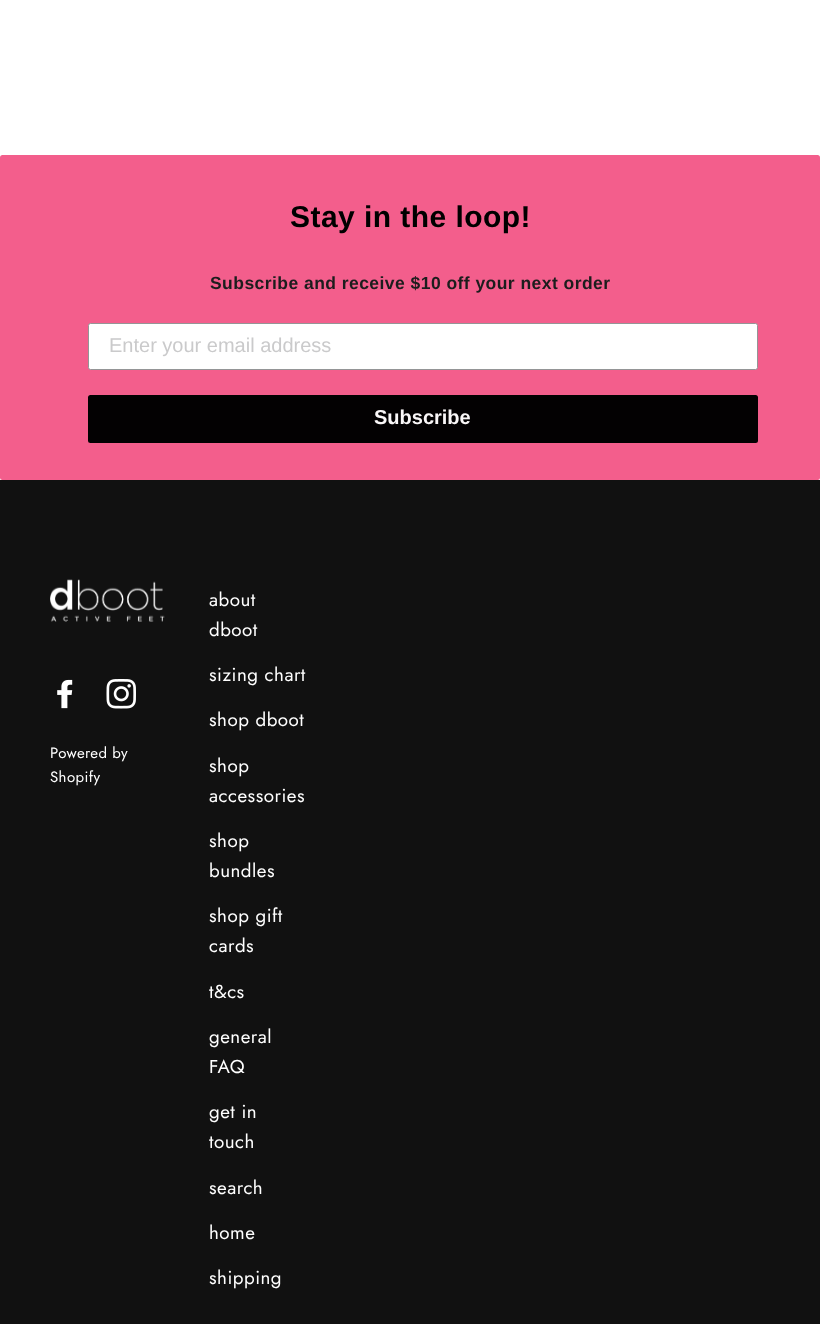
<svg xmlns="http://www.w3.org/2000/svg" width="820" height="1324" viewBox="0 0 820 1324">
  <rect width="100%" height="100%" fill="rgb(255,255,255)"/>
  <rect x="0" y="155" width="820" height="325" rx="2.5" fill="rgb(243,94,140)"/>
  <text x="290" y="227" font-family="Liberation Sans" font-size="30" font-weight="bold" letter-spacing="0.45" fill="rgb(0,0,0)">Stay in the loop!</text>
  <text x="210" y="289" font-family="Liberation Sans" font-size="17.5" font-weight="bold" letter-spacing="0.45" fill="rgb(28,29,29)">Subscribe and receive $10 off your next order</text>
  <rect x="88.5" y="323.5" width="669" height="46" rx="2" fill="rgb(255,255,255)" stroke="rgb(148,149,150)"/>
  <text x="109" y="352" font-family="Liberation Sans" font-size="20" fill="rgb(202,202,203)">Enter your email address</text>
  <rect x="88" y="395" width="670" height="48" rx="2.5" fill="rgb(3,1,2)"/>
  <text x="374" y="424" font-family="Liberation Sans" font-size="20" font-weight="bold" fill="rgb(250,247,248)">Subscribe</text>
  <rect x="0" y="480" width="820" height="844" fill="rgb(17,17,17)"/>
  <image x="50" y="579" width="115" height="43" href="pic1.png"/>
  <image x="57" y="679" width="16" height="30" href="pic2.png"/>
  <image x="106" y="679" width="30" height="30" href="pic3.png"/>
  <g font-family="Jost" font-size="15" letter-spacing="0.4" fill="rgb(255,255,255)">
    <text>
      <tspan x="50" y="758">Powered by</tspan>
      <tspan x="50" y="782">Shopify</tspan>
    </text>
  </g>
  <g font-family="Jost" font-size="18.75" letter-spacing="0.5" fill="rgb(255,255,255)">
    <text>
      <tspan x="209" y="606">about</tspan>
      <tspan x="209" y="636">dboot</tspan>
    </text>
    <text x="209" y="681">sizing chart</text>
    <text x="209" y="726">shop dboot</text>
    <text>
      <tspan x="209" y="772">shop</tspan>
      <tspan x="209" y="802">accessories</tspan>
    </text>
    <text>
      <tspan x="209" y="847">shop</tspan>
      <tspan x="209" y="877">bundles</tspan>
    </text>
    <text>
      <tspan x="209" y="922">shop gift</tspan>
      <tspan x="209" y="952">cards</tspan>
    </text>
    <text x="209" y="998">t&amp;cs</text>
    <text>
      <tspan x="209" y="1043">general</tspan>
      <tspan x="209" y="1073">FAQ</tspan>
    </text>
    <text>
      <tspan x="209" y="1118">get in</tspan>
      <tspan x="209" y="1148">touch</tspan>
    </text>
    <text x="209" y="1194">search</text>
    <text x="209" y="1239">home</text>
    <text x="209" y="1284">shipping</text>
  </g>
</svg>
